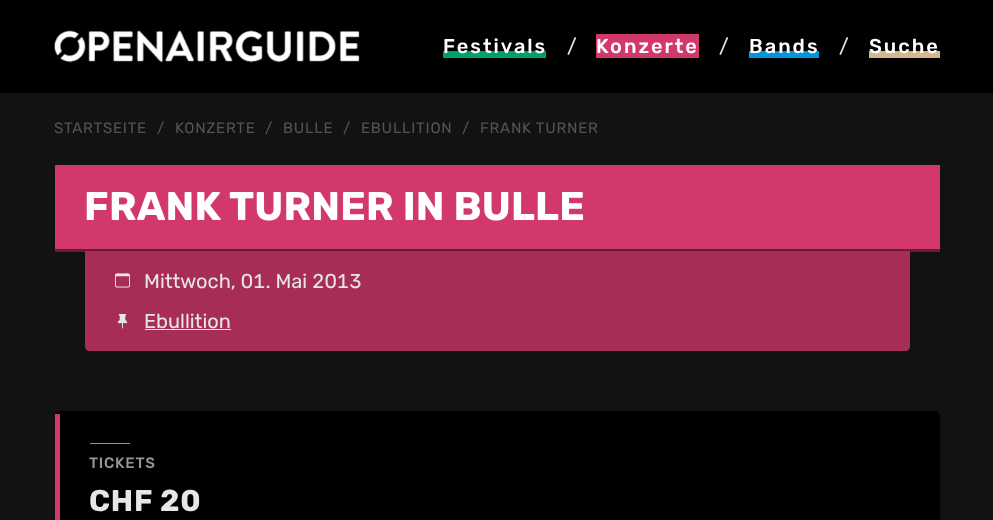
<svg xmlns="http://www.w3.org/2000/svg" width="993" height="520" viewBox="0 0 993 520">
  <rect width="100%" height="100%" fill="rgb(18,18,18)"/>
  <rect x="0" y="0" width="993" height="93" fill="rgb(0,0,0)"/>
  <image x="54" y="30" width="306" height="33" href="pic1.png"/>
  <rect x="443" y="51" width="103" height="7" fill="rgb(0,161,112)"/>
  <text x="443" y="53" font-family="Rubik" font-size="20" font-weight="500" letter-spacing="2" fill="rgb(255,255,255)">Festivals</text>
  <text x="567" y="53" font-family="Rubik" font-size="20" fill="rgb(230,230,230)">/</text>
  <rect x="596" y="34" width="103" height="24" fill="rgb(210,56,108)"/>
  <text x="596" y="53" font-family="Rubik" font-size="20" font-weight="500" letter-spacing="2" fill="rgb(255,255,255)">Konzerte</text>
  <text x="719" y="53" font-family="Rubik" font-size="20" fill="rgb(230,230,230)">/</text>
  <rect x="749" y="51" width="70" height="7" fill="rgb(2,150,221)"/>
  <text x="749" y="53" font-family="Rubik" font-size="20" font-weight="500" letter-spacing="2" fill="rgb(255,255,255)">Bands</text>
  <text x="839" y="53" font-family="Rubik" font-size="20" fill="rgb(230,230,230)">/</text>
  <rect x="869" y="51" width="71" height="7" fill="rgb(212,185,139)"/>
  <text x="869" y="53" font-family="Rubik" font-size="20" font-weight="500" letter-spacing="2" fill="rgb(255,255,255)">Suche</text>
  <g font-family="Rubik" font-size="15" letter-spacing="0.75" fill="rgb(84,84,84)">
    <text x="54" y="133">STARTSEITE</text>
    <text x="157" y="133">/</text>
    <text x="175" y="133">KONZERTE</text>
    <text x="265" y="133">/</text>
    <text x="283" y="133">BULLE</text>
    <text x="343" y="133">/</text>
    <text x="361" y="133">EBULLITION</text>
    <text x="462" y="133">/</text>
    <text x="480" y="133">FRANK TURNER</text>
  </g>
  <rect x="55" y="165" width="885" height="84" fill="rgb(210,56,108)"/>
  <rect x="55" y="249" width="885" height="3" fill="rgb(105,28,54)"/>
  <text x="84" y="220" font-family="Rubik" font-size="40" font-weight="bold" letter-spacing="0.2" fill="rgb(255,255,255)">FRANK TURNER IN BULLE</text>
  <path d="M85 251H910V346C910 349 908 351 905 351H90C87 351 85 349 85 346Z" fill="rgb(168,45,86)"/>
  <image x="115" y="273" width="15" height="15" href="pic2.png"/>
  <text x="144" y="288" font-family="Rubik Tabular" font-size="20" fill="rgb(230,230,230)">Mittwoch, 01. Mai 2013</text>
  <image x="117" y="314" width="11" height="15" href="pic3.png"/>
  <text x="144" y="328" font-family="Rubik" font-size="20" fill="rgb(230,230,230)">Ebullition</text>
  <rect x="145" y="329" width="86" height="1" fill="rgb(230,230,230)"/>
  <rect x="55" y="411" width="885" height="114" rx="5" fill="rgb(0,0,0)"/>
  <rect x="55" y="414" width="5" height="106" fill="rgb(210,56,108)"/>
  <rect x="90" y="443" width="40" height="1" fill="rgb(149,149,149)"/>
  <text x="89" y="468" font-family="Rubik" font-size="15" font-weight="500" letter-spacing="0.75" fill="rgb(149,149,149)">TICKETS</text>
  <text x="89" y="511" font-family="Rubik" font-size="30" font-weight="bold" letter-spacing="0.75" fill="rgb(230,230,230)">CHF 20</text>
</svg>
